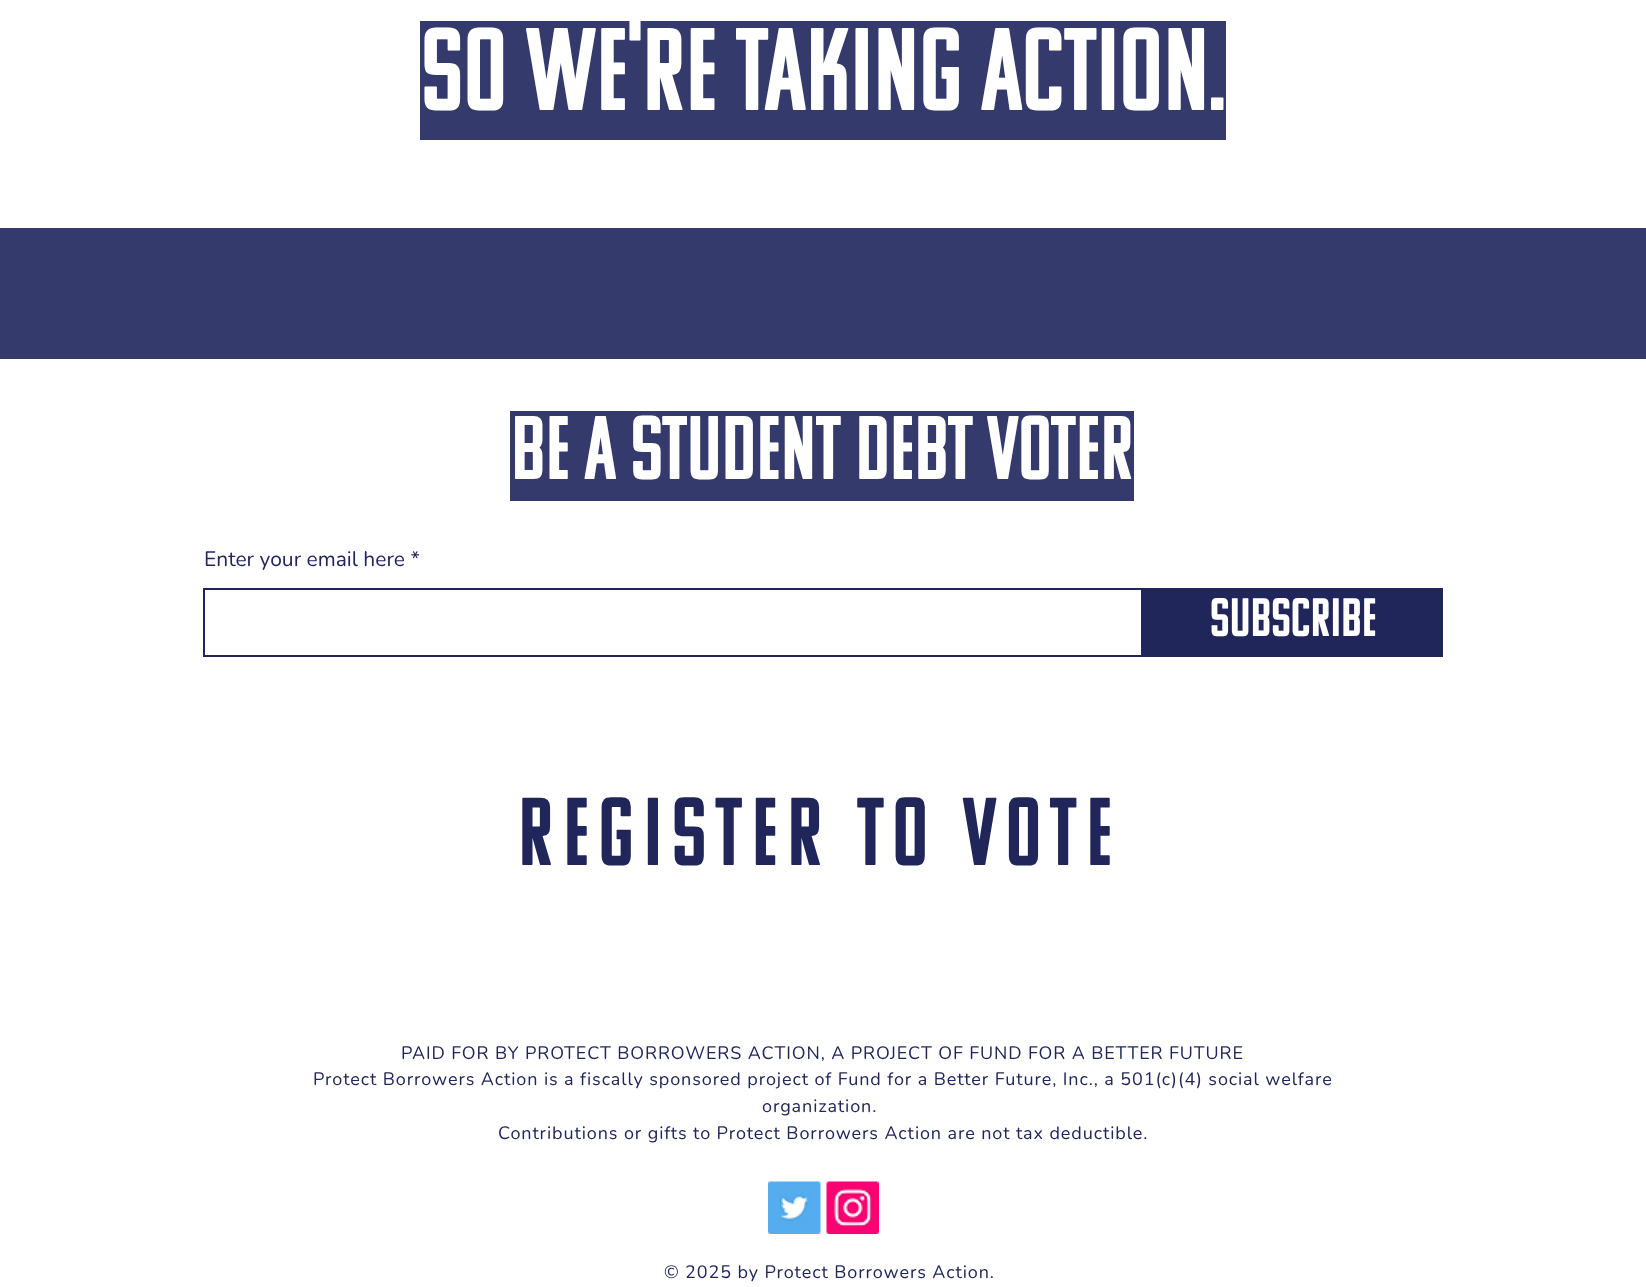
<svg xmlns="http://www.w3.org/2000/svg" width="1646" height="1287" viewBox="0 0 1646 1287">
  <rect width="100%" height="100%" fill="rgb(255,255,255)"/>
  <rect x="420" y="21" width="806" height="119" fill="rgb(52,58,107)"/>
  <text x="421" y="110" font-family="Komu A" font-size="117" fill="rgb(255,255,255)">SO We're taking action.</text>
  <rect x="0" y="228" width="1646" height="131" fill="rgb(52,58,107)"/>
  <rect x="510" y="411" width="624" height="90" fill="rgb(52,58,107)"/>
  <text x="511" y="479" font-family="Komu A" font-size="90" fill="rgb(255,255,255)">Be a student debt voter</text>
  <text x="204" y="566" font-family="Nunito" font-size="21" fill="rgb(32,38,89)">Enter your email here *</text>
  <rect x="204" y="589" width="938" height="67" fill="none" stroke="rgb(32,38,89)" stroke-width="2"/>
  <rect x="1143" y="588" width="300" height="69" fill="rgb(32,38,89)"/>
  <text x="1210" y="636" font-family="Komu A" font-size="54" fill="rgb(255,255,255)">Subscribe</text>
  <text x="518" y="865" font-family="Komu A" font-size="96" letter-spacing="9.6" fill="rgb(32,38,89)">Register to Vote</text>
  <g font-family="Nunito" font-size="18" letter-spacing="0.9" fill="rgb(32,38,89)">
    <text x="401" y="1059">PAID FOR BY PROTECT BORROWERS ACTION, A PROJECT OF FUND FOR A BETTER FUTURE</text>
    <text x="313" y="1085">Protect Borrowers Action is a fiscally sponsored project of Fund for a Better Future, Inc., a 501(c)(4) social welfare</text>
    <text x="762" y="1112">organization.</text>
    <text x="498" y="1139">Contributions or gifts to Protect Borrowers Action are not tax deductible.</text>
  </g>
  <image x="768" y="1181" width="53" height="53" href="pic1.png"/>
  <image x="826" y="1181" width="53" height="53" href="pic2.png"/>
  <text x="664" y="1278" font-family="Nunito" font-size="18" letter-spacing="0.9" fill="rgb(32,38,89)">© 2025 by Protect Borrowers Action.</text>
</svg>
